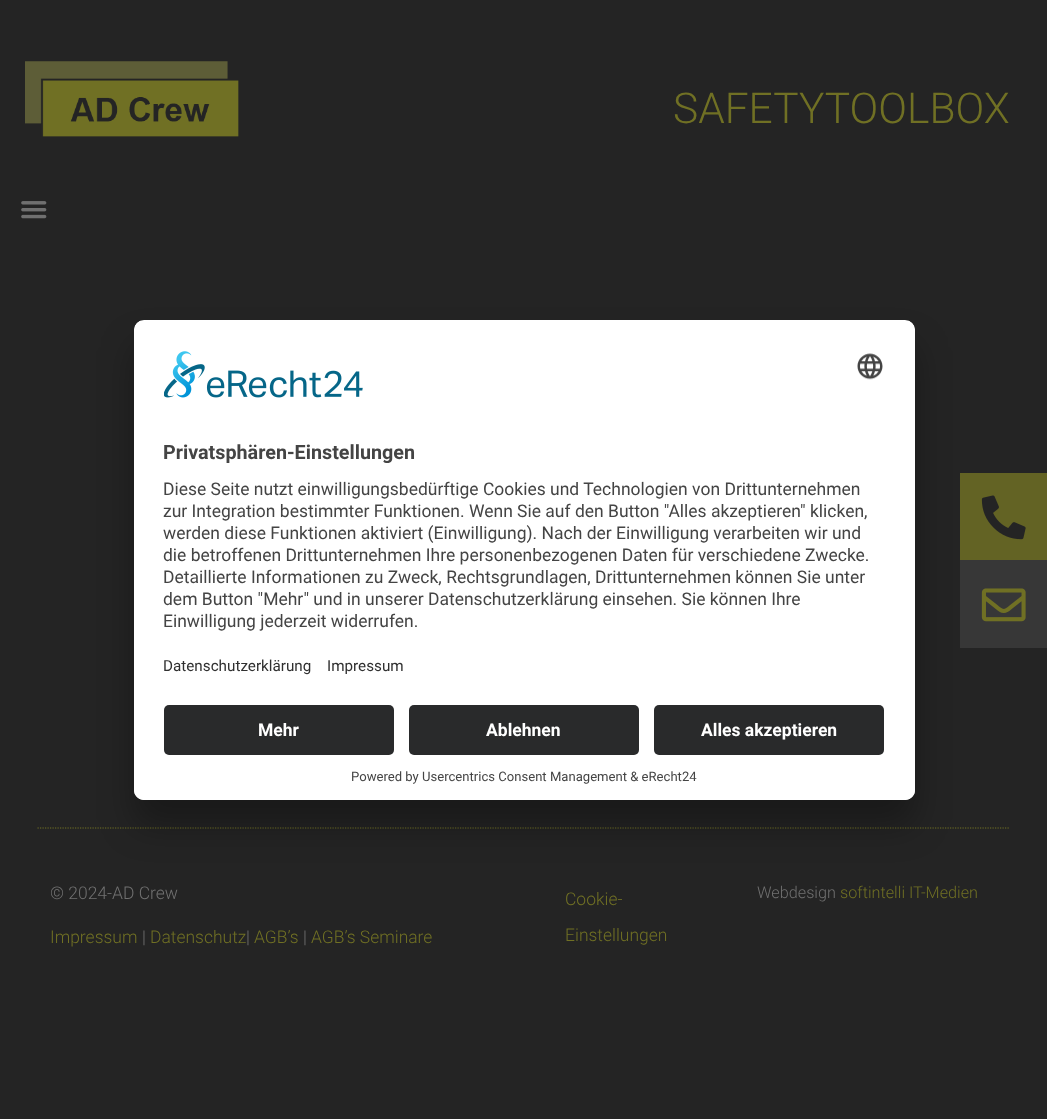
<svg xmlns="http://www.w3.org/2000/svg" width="1047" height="1119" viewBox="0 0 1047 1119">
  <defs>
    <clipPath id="clip1"><rect x="134" y="320" width="781" height="480" rx="10"/></clipPath>
    <clipPath id="clip2"><path d="M144 320H905C910.5 320 915 324.5 915 330V695H134V330C134 324.5 138.5 320 144 320Z"/></clipPath>
  </defs>
  <rect width="100%" height="100%" fill="rgb(36,36,36)"/>
  <image x="25" y="61" width="214" height="76" href="pic1.png"/>
  <text x="673" y="123" font-family="Roboto" font-size="42.5" font-weight="300" fill="rgb(112,112,36)">SAFETYTOOLBOX</text>
  <image x="21" y="201" width="26" height="18" href="pic2.png"/>
  <rect x="960" y="473" width="87" height="87" fill="rgb(99,99,36)"/>
  <rect x="960" y="560" width="87" height="88" fill="rgb(55,55,55)"/>
  <path d="M37.5 828H1010" fill="none" stroke="rgb(112,112,36)" stroke-width="1.2" stroke-dasharray="1.25 1.25"/>
  <rect x="134" y="345" width="781" height="480" rx="10" fill="rgba(0,0,0,0.3)" filter="blur(17.5px)"/>
  <rect x="134" y="320" width="781" height="480" rx="10" fill="rgb(255,255,255)"/>
  <g clip-path="url(#clip1)">
    <g clip-path="url(#clip2)">
      <rect x="134" y="321" width="781" height="374" fill="rgb(255,255,255)"/>
    </g>
  </g>
  <image x="164" y="351" width="199" height="47" href="pic3.png"/>
  <image x="857" y="353" width="26" height="27" href="pic4.png"/>
  <text x="163" y="459" font-family="Roboto" font-size="19.75" font-weight="bold" fill="rgb(68,68,68)">Privatsphären-Einstellungen</text>
  <g font-family="Roboto" font-size="17.5" fill="rgb(68,68,68)">
    <text>
      <tspan x="163" y="495">Diese Seite nutzt einwilligungsbedürftige Cookies und Technologien von Drittunternehmen</tspan>
      <tspan x="163" y="517">zur Integration bestimmter Funktionen. Wenn Sie auf den Button "Alles akzeptieren" klicken,</tspan>
      <tspan x="163" y="539">werden diese Funktionen aktiviert (Einwilligung). Nach der Einwilligung verarbeiten wir und</tspan>
      <tspan x="163" y="561">die betroffenen Drittunternehmen Ihre personenbezogenen Daten für verschiedene Zwecke.</tspan>
      <tspan x="163" y="583">Detaillierte Informationen zu Zweck, Rechtsgrundlagen, Drittunternehmen können Sie unter</tspan>
      <tspan x="163" y="605">dem Button "Mehr" und in unserer Datenschutzerklärung einsehen. Sie können Ihre</tspan>
      <tspan x="163" y="627">Einwilligung jederzeit widerrufen.</tspan>
    </text>
  </g>
  <g font-family="Roboto" font-size="15.25" fill="rgb(48,48,48)">
    <text x="163" y="671">Datenschutzerklärung</text>
    <text x="327" y="671">Impressum</text>
  </g>
  <path d="M134 695H915V790C915 795.5 910.5 800 905 800H144C138.5 800 134 795.5 134 790Z" fill="rgb(255,255,255)"/>
  <rect x="164" y="705" width="230" height="50" rx="5" fill="rgb(41,42,43)"/>
  <text x="258" y="736" font-family="Roboto" font-size="17.5" font-weight="bold" fill="rgb(255,255,255)">Mehr</text>
  <rect x="409" y="705" width="230" height="50" rx="5" fill="rgb(41,42,43)"/>
  <text x="486" y="736" font-family="Roboto" font-size="17.5" font-weight="bold" fill="rgb(255,255,255)">Ablehnen</text>
  <rect x="654" y="705" width="230" height="50" rx="5" fill="rgb(41,42,43)"/>
  <text x="701" y="736" font-family="Roboto" font-size="17.5" font-weight="bold" fill="rgb(255,255,255)">Alles akzeptieren</text>
  <text x="351" y="781" font-family="Roboto" font-size="13.1" fill="rgb(68,68,68)">Powered by Usercentrics Consent Management &amp; eRecht24</text>
  <image x="981" y="495" width="45" height="45" href="pic5.png"/>
  <image x="981" y="588" width="45" height="34" href="pic6.png"/>
  <text x="50" y="899" font-family="Roboto" font-size="17.5" font-weight="300" fill="rgb(112,112,112)">© 2024-AD Crew</text>
  <text x="50" y="943" font-family="Roboto" font-size="17.5" font-weight="300" fill="rgb(112,112,36)">Impressum</text>
  <text x="142" y="943" font-family="Roboto" font-size="17.5" font-weight="300" fill="rgb(112,112,112)">|</text>
  <text x="150" y="943" font-family="Roboto" font-size="17.5" font-weight="300" fill="rgb(112,112,36)">Datenschutz</text>
  <text x="246" y="943" font-family="Roboto" font-size="17.5" font-weight="300" fill="rgb(112,112,112)">|</text>
  <text x="254" y="943" font-family="Roboto" font-size="17.5" font-weight="300" fill="rgb(112,112,36)">AGB’s</text>
  <text x="303" y="943" font-family="Roboto" font-size="17.5" font-weight="300" fill="rgb(112,112,112)">|</text>
  <g font-family="Roboto" font-size="17.5" font-weight="300" fill="rgb(112,112,36)">
    <text x="311" y="943">AGB’s Seminare</text>
    <text x="565" y="905">Cookie-</text>
    <text x="565" y="941">Einstellungen</text>
  </g>
  <text x="757" y="898" font-family="Roboto" font-size="16.25" font-weight="300" fill="rgb(112,112,112)">Webdesign</text>
  <text x="840" y="898" font-family="Roboto" font-size="16.25" font-weight="300" fill="rgb(112,112,36)">softintelli IT-Medien</text>
</svg>
